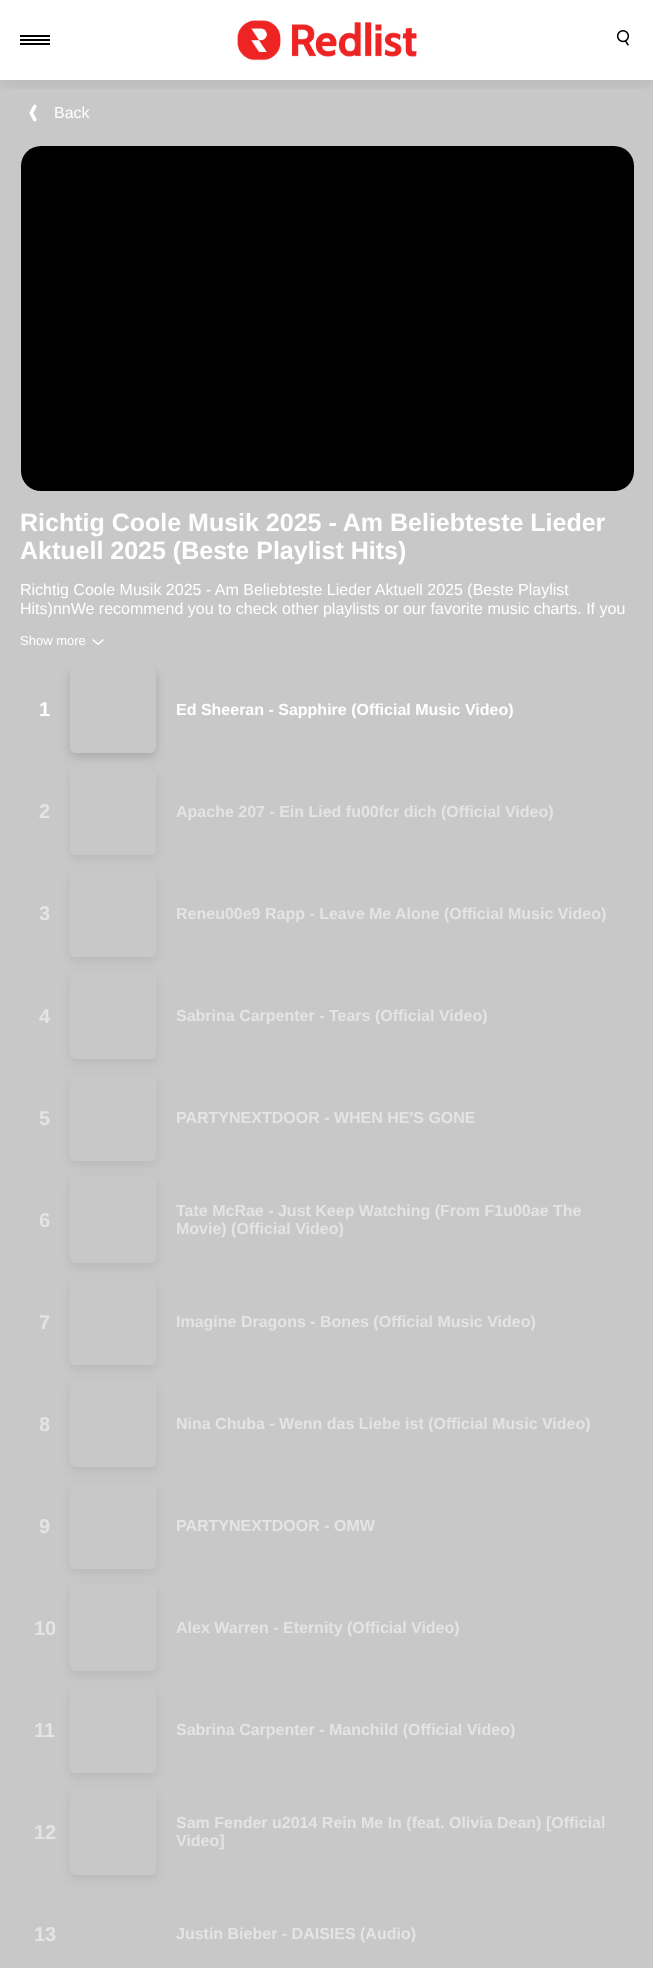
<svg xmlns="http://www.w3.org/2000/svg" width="653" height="1968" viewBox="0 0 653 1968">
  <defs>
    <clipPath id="clip1"><rect x="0" y="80" width="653" height="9"/></clipPath>
    <clipPath id="clip2"><rect x="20" y="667" width="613" height="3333"/></clipPath>
    <clipPath id="clip3"><path d="M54 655H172V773H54ZM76 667H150C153.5 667 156 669.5 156 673V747C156 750.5 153.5 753 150 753H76C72.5 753 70 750.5 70 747V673C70 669.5 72.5 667 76 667Z" clip-rule="evenodd"/></clipPath>
    <clipPath id="clip4"><path d="M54 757H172V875H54ZM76 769H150C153.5 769 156 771.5 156 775V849C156 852.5 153.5 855 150 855H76C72.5 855 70 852.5 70 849V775C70 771.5 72.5 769 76 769Z" clip-rule="evenodd"/></clipPath>
    <clipPath id="clip5"><path d="M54 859H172V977H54ZM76 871H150C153.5 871 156 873.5 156 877V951C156 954.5 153.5 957 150 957H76C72.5 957 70 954.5 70 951V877C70 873.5 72.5 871 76 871Z" clip-rule="evenodd"/></clipPath>
    <clipPath id="clip6"><path d="M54 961H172V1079H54ZM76 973H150C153.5 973 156 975.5 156 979V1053C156 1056.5 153.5 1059 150 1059H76C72.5 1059 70 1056.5 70 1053V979C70 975.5 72.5 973 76 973Z" clip-rule="evenodd"/></clipPath>
    <clipPath id="clip7"><path d="M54 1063H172V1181H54ZM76 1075H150C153.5 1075 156 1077.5 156 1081V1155C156 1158.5 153.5 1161 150 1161H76C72.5 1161 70 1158.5 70 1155V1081C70 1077.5 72.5 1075 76 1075Z" clip-rule="evenodd"/></clipPath>
    <clipPath id="clip8"><path d="M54 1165H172V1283H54ZM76 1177H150C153.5 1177 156 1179.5 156 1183V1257C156 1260.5 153.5 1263 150 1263H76C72.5 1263 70 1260.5 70 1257V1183C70 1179.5 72.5 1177 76 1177Z" clip-rule="evenodd"/></clipPath>
    <clipPath id="clip9"><path d="M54 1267H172V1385H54ZM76 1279H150C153.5 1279 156 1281.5 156 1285V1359C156 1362.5 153.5 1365 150 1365H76C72.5 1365 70 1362.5 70 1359V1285C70 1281.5 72.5 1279 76 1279Z" clip-rule="evenodd"/></clipPath>
    <clipPath id="clip10"><path d="M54 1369H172V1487H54ZM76 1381H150C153.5 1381 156 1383.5 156 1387V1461C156 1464.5 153.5 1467 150 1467H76C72.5 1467 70 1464.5 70 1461V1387C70 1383.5 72.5 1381 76 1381Z" clip-rule="evenodd"/></clipPath>
    <clipPath id="clip11"><path d="M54 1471H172V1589H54ZM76 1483H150C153.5 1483 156 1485.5 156 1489V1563C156 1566.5 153.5 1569 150 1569H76C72.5 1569 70 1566.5 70 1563V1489C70 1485.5 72.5 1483 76 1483Z" clip-rule="evenodd"/></clipPath>
    <clipPath id="clip12"><path d="M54 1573H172V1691H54ZM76 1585H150C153.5 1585 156 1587.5 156 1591V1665C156 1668.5 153.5 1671 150 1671H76C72.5 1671 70 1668.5 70 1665V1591C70 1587.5 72.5 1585 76 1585Z" clip-rule="evenodd"/></clipPath>
    <clipPath id="clip13"><path d="M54 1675H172V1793H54ZM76 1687H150C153.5 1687 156 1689.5 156 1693V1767C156 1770.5 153.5 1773 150 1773H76C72.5 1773 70 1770.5 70 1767V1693C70 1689.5 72.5 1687 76 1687Z" clip-rule="evenodd"/></clipPath>
    <clipPath id="clip14"><path d="M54 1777H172V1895H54ZM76 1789H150C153.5 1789 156 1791.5 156 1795V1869C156 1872.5 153.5 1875 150 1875H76C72.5 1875 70 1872.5 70 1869V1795C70 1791.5 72.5 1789 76 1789Z" clip-rule="evenodd"/></clipPath>
  </defs>
  <rect width="100%" height="100%" fill="rgb(255,255,255)"/>
  <rect x="0" y="80" width="653" height="1888" fill="rgb(200,200,200)"/>
  <image x="29" y="104" width="8" height="18" href="pic3.png"/>
  <g clip-path="url(#clip1)">
    <rect x="0" y="5" width="653" height="80" fill="rgba(0,0,0,0.07)" filter="blur(7.5px)"/>
  </g>
  <rect x="20" y="39" width="30" height="2" fill="rgb(0,0,0)"/>
  <rect x="20" y="35" width="30" height="2" fill="rgb(0,0,0)"/>
  <rect x="20" y="43" width="30" height="2" fill="rgb(0,0,0)"/>
  <image x="237" y="20" width="180" height="41" href="pic1.png"/>
  <image x="616" y="30" width="14" height="16" href="pic2.png"/>
  <text x="54" y="118" font-family="Arimo" font-size="16" fill="rgb(255,255,255)">Back</text>
  <rect x="21" y="146" width="613" height="345" rx="20" fill="rgb(0,0,0)"/>
  <g font-family="Arimo" font-size="25" font-weight="bold" fill="rgb(255,255,255)">
    <text>
      <tspan x="20" y="531">Richtig Coole Musik 2025 - Am Beliebteste Lieder</tspan>
      <tspan x="20" y="559">Aktuell 2025 (Beste Playlist Hits)</tspan>
    </text>
  </g>
  <g font-family="Arimo" font-size="16" fill="rgb(255,255,255)">
    <text>
      <tspan x="20" y="595">Richtig Coole Musik 2025 - Am Beliebteste Lieder Aktuell 2025 (Beste Playlist</tspan>
      <tspan x="20" y="614">Hits)nnWe recommend you to check other playlists or our favorite music charts. If you</tspan>
    </text>
  </g>
  <text x="20" y="645" font-family="Liberation Sans" font-size="13" fill="rgb(255,255,255)">Show more</text>
  <image x="92" y="639" width="12" height="6" href="pic4.png"/>
  <text x="39" y="716" font-family="Arimo" font-size="20" font-weight="bold" fill="rgb(255,255,255)">1</text>
  <g clip-path="url(#clip2)">
    <g clip-path="url(#clip3)">
      <rect x="70" y="671" width="86" height="86" rx="6" fill="rgba(0,0,0,0.15)" filter="blur(5px)"/>
    </g>
  </g>
  <text x="176" y="715" font-family="Arimo" font-size="16" font-weight="bold" fill="rgb(255,255,255)">Ed Sheeran - Sapphire (Official Music Video)</text>
  <text x="39" y="818" font-family="Arimo" font-size="20" font-weight="bold" fill="rgb(228,228,228)">2</text>
  <g clip-path="url(#clip4)">
    <rect x="70" y="773" width="86" height="86" rx="6" fill="rgba(0,0,0,0.07)" filter="blur(5px)"/>
  </g>
  <text x="176" y="817" font-family="Arimo" font-size="16" font-weight="bold" fill="rgb(228,228,228)">Apache 207 - Ein Lied fu00fcr dich (Official Video)</text>
  <text x="39" y="920" font-family="Arimo" font-size="20" font-weight="bold" fill="rgb(228,228,228)">3</text>
  <g clip-path="url(#clip5)">
    <rect x="70" y="875" width="86" height="86" rx="6" fill="rgba(100,100,100,0.15)" filter="blur(5px)"/>
  </g>
  <text x="176" y="919" font-family="Arimo" font-size="16" font-weight="bold" fill="rgb(228,228,228)">Reneu00e9 Rapp - Leave Me Alone (Official Music Video)</text>
  <text x="39" y="1023" font-family="Arimo" font-size="20" font-weight="bold" fill="rgb(228,228,228)">4</text>
  <g clip-path="url(#clip6)">
    <rect x="70" y="977" width="86" height="86" rx="6" fill="rgba(100,100,100,0.15)" filter="blur(5px)"/>
  </g>
  <text x="176" y="1021" font-family="Arimo" font-size="16" font-weight="bold" fill="rgb(228,228,228)">Sabrina Carpenter - Tears (Official Video)</text>
  <text x="39" y="1125" font-family="Arimo" font-size="20" font-weight="bold" fill="rgb(228,228,228)">5</text>
  <g clip-path="url(#clip7)">
    <rect x="70" y="1079" width="86" height="86" rx="6" fill="rgba(100,100,100,0.15)" filter="blur(5px)"/>
  </g>
  <text x="176" y="1123" font-family="Arimo" font-size="16" font-weight="bold" fill="rgb(228,228,228)">PARTYNEXTDOOR - WHEN HE'S GONE</text>
  <text x="39" y="1227" font-family="Arimo" font-size="20" font-weight="bold" fill="rgb(228,228,228)">6</text>
  <g clip-path="url(#clip8)">
    <rect x="70" y="1181" width="86" height="86" rx="6" fill="rgba(100,100,100,0.15)" filter="blur(5px)"/>
  </g>
  <g font-family="Arimo" font-size="16" font-weight="bold" fill="rgb(228,228,228)">
    <text>
      <tspan x="176" y="1216">Tate McRae - Just Keep Watching (From F1u00ae The</tspan>
      <tspan x="176" y="1234">Movie) (Official Video)</tspan>
    </text>
  </g>
  <text x="39" y="1329" font-family="Arimo" font-size="20" font-weight="bold" fill="rgb(228,228,228)">7</text>
  <g clip-path="url(#clip9)">
    <rect x="70" y="1283" width="86" height="86" rx="6" fill="rgba(100,100,100,0.15)" filter="blur(5px)"/>
  </g>
  <text x="176" y="1327" font-family="Arimo" font-size="16" font-weight="bold" fill="rgb(228,228,228)">Imagine Dragons - Bones (Official Music Video)</text>
  <text x="39" y="1431" font-family="Arimo" font-size="20" font-weight="bold" fill="rgb(228,228,228)">8</text>
  <g clip-path="url(#clip10)">
    <rect x="70" y="1385" width="86" height="86" rx="6" fill="rgba(100,100,100,0.15)" filter="blur(5px)"/>
  </g>
  <text x="176" y="1429" font-family="Arimo" font-size="16" font-weight="bold" fill="rgb(228,228,228)">Nina Chuba - Wenn das Liebe ist (Official Music Video)</text>
  <text x="39" y="1533" font-family="Arimo" font-size="20" font-weight="bold" fill="rgb(228,228,228)">9</text>
  <g clip-path="url(#clip11)">
    <rect x="70" y="1487" width="86" height="86" rx="6" fill="rgba(100,100,100,0.15)" filter="blur(5px)"/>
  </g>
  <text x="176" y="1531" font-family="Arimo" font-size="16" font-weight="bold" fill="rgb(228,228,228)">PARTYNEXTDOOR - OMW</text>
  <text x="34" y="1635" font-family="Arimo" font-size="20" font-weight="bold" fill="rgb(228,228,228)">10</text>
  <g clip-path="url(#clip12)">
    <rect x="70" y="1589" width="86" height="86" rx="6" fill="rgba(100,100,100,0.15)" filter="blur(5px)"/>
  </g>
  <text x="176" y="1633" font-family="Arimo" font-size="16" font-weight="bold" fill="rgb(228,228,228)">Alex Warren - Eternity (Official Video)</text>
  <text x="34" y="1737" font-family="Arimo" font-size="20" font-weight="bold" fill="rgb(228,228,228)">11</text>
  <g clip-path="url(#clip13)">
    <rect x="70" y="1691" width="86" height="86" rx="6" fill="rgba(100,100,100,0.15)" filter="blur(5px)"/>
  </g>
  <text x="176" y="1735" font-family="Arimo" font-size="16" font-weight="bold" fill="rgb(228,228,228)">Sabrina Carpenter - Manchild (Official Video)</text>
  <text x="34" y="1839" font-family="Arimo" font-size="20" font-weight="bold" fill="rgb(228,228,228)">12</text>
  <g clip-path="url(#clip14)">
    <rect x="70" y="1793" width="86" height="86" rx="6" fill="rgba(100,100,100,0.15)" filter="blur(5px)"/>
  </g>
  <g font-family="Arimo" font-size="16" font-weight="bold" fill="rgb(228,228,228)">
    <text>
      <tspan x="176" y="1828">Sam Fender u2014 Rein Me In (feat. Olivia Dean) [Official</tspan>
      <tspan x="176" y="1846">Video]</tspan>
    </text>
  </g>
  <text x="34" y="1941" font-family="Arimo" font-size="20" font-weight="bold" fill="rgb(228,228,228)">13</text>
  <text x="176" y="1939" font-family="Arimo" font-size="16" font-weight="bold" fill="rgb(228,228,228)">Justin Bieber - DAISIES (Audio)</text>
</svg>
